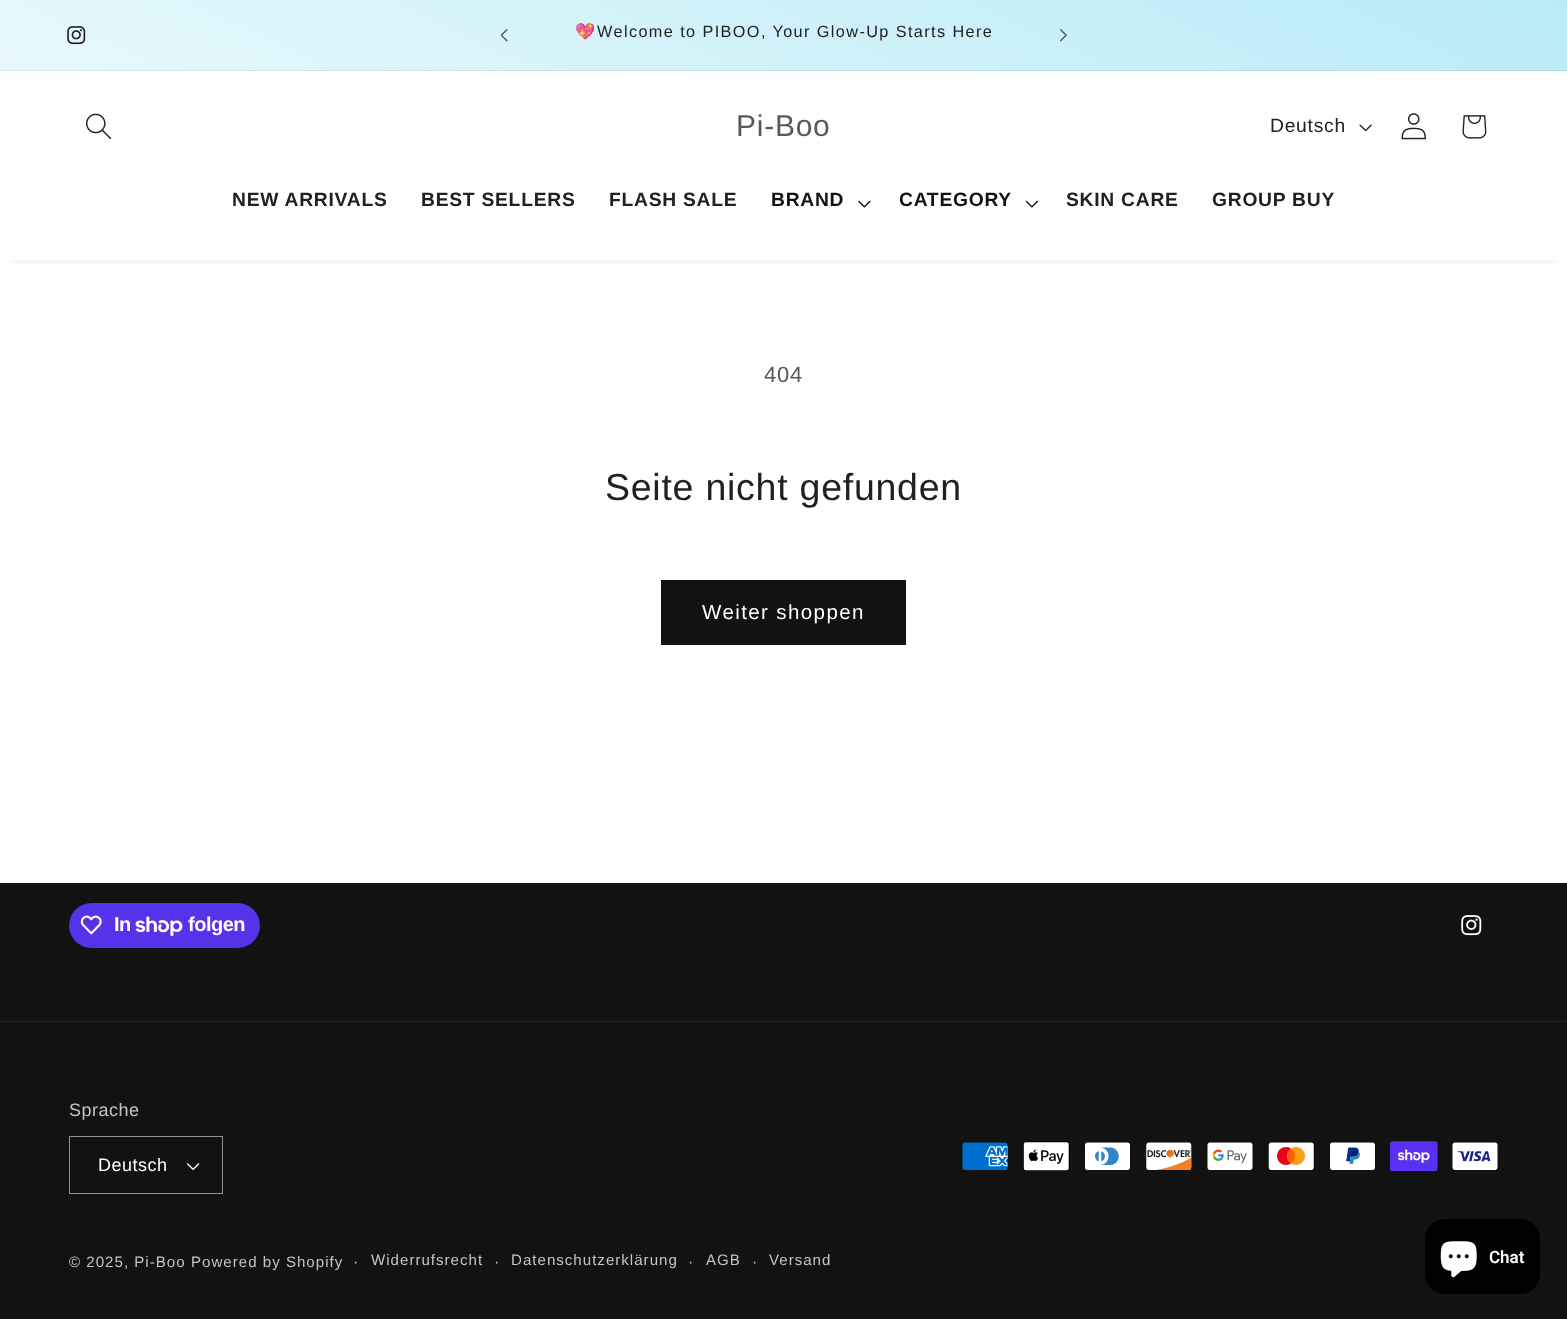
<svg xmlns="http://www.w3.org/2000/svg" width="1567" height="1319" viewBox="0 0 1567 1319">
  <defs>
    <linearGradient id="g1" gradientUnits="userSpaceOnUse" x1="1177" y1="-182" x2="391" y2="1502"><stop offset="0" stop-color="rgb(185,235,246)"/><stop offset="0.5" stop-color="rgb(244,252,254)"/><stop offset="1" stop-color="rgb(193,249,236)"/></linearGradient>
    <linearGradient id="g2" gradientUnits="userSpaceOnUse" x1="1177" y1="-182" x2="391" y2="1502"><stop offset="0" stop-color="rgb(173,219,229)"/><stop offset="0.5" stop-color="rgb(227,234,236)"/><stop offset="1" stop-color="rgb(180,232,220)"/></linearGradient>
    <clipPath id="clip1"><rect x="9" y="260" width="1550" height="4"/></clipPath>
  </defs>
  <rect width="100%" height="100%" fill="rgb(255,255,255)"/>
  <rect x="0" y="0" width="1567" height="70" fill="url(#g1)"/>
  <rect x="0" y="70" width="1567" height="1" fill="url(#g2)"/>
  <image x="67" y="26" width="19" height="19" href="pic1.png"/>
  <image x="500" y="29" width="8" height="13" href="pic2.png"/>
  <text x="575" y="37" font-family="Noto Color Emoji" font-size="16.25" letter-spacing="1.4" fill="rgb(33,33,33)">💖</text>
  <text x="597" y="37" font-family="Liberation Sans" font-size="16.25" letter-spacing="1.4" fill="rgb(33,33,33)">Welcome to PIBOO, Your Glow-Up Starts Here</text>
  <image x="1060" y="29" width="7" height="13" href="pic3.png"/>
  <g clip-path="url(#clip1)">
    <rect x="10" y="91" width="1548" height="169" fill="rgba(0,0,0,0.1)" filter="blur(5px)"/>
  </g>
  <image x="85" y="113" width="27" height="27" href="pic4.png"/>
  <text x="736" y="136" font-family="Liberation Sans" font-size="30" letter-spacing="0.75" fill="rgb(89,89,89)">Pi-Boo</text>
  <text x="1270" y="132" font-family="Liberation Sans" font-size="19.25" letter-spacing="0.75" fill="rgb(33,33,33)">Deutsch</text>
  <image x="1359" y="124" width="13" height="7" href="pic5.png"/>
  <image x="1401" y="113" width="26" height="27" href="pic6.png"/>
  <image x="1462" y="115" width="25" height="24" href="pic7.png"/>
  <g font-family="Liberation Sans" font-size="19.25" font-weight="bold" letter-spacing="0.75" fill="rgb(33,33,33)">
    <text x="232" y="206">NEW ARRIVALS</text>
    <text x="421" y="206">BEST SELLERS</text>
    <text x="609" y="206">FLASH SALE</text>
  </g>
  <text x="771" y="206" font-family="Liberation Sans" font-size="19.25" font-weight="bold" letter-spacing="0.75" fill="rgb(18,18,18)">BRAND</text>
  <image x="858" y="200" width="13" height="8" href="pic8.png"/>
  <text x="899" y="206" font-family="Liberation Sans" font-size="19.25" font-weight="bold" letter-spacing="0.75" fill="rgb(18,18,18)">CATEGORY</text>
  <image x="1025" y="200" width="13" height="8" href="pic9.png"/>
  <g font-family="Liberation Sans" font-size="19.25" font-weight="bold" letter-spacing="0.75" fill="rgb(33,33,33)">
    <text x="1066" y="206">SKIN CARE</text>
    <text x="1212" y="206">GROUP BUY</text>
  </g>
  <text x="764" y="382" font-family="Liberation Sans" font-size="22" letter-spacing="0.75" fill="rgb(89,89,89)">404</text>
  <text x="605" y="500" font-family="Liberation Sans" font-size="37.5" letter-spacing="0.75" fill="rgb(33,33,33)">Seite nicht gefunden</text>
  <rect x="661" y="580" width="245" height="65" fill="rgb(18,18,18)"/>
  <text x="702" y="619" font-family="Liberation Sans" font-size="20.5" letter-spacing="1.4" fill="rgb(255,255,255)">Weiter shoppen</text>
  <rect x="0" y="883" width="1567" height="436" fill="rgb(18,18,18)"/>
  <rect x="69" y="903" width="191" height="45" rx="22.5" fill="rgb(84,51,235)"/>
  <image x="80" y="915" width="22" height="20" href="pic10.png"/>
  <text x="114" y="931" font-family="Liberation Sans" font-size="20" font-weight="bold" letter-spacing="-0.5" fill="rgb(255,255,255)">In</text>
  <image x="135" y="916" width="48" height="20" href="pic11.png"/>
  <text x="188" y="931" font-family="Liberation Sans" font-size="20" font-weight="bold" letter-spacing="-0.5" fill="rgb(255,255,255)">folgen</text>
  <image x="1461" y="915" width="21" height="21" href="pic12.png"/>
  <rect x="0" y="1021" width="1567" height="1" fill="rgb(37,37,37)"/>
  <text x="69" y="1116" font-family="Liberation Sans" font-size="18" letter-spacing="0.5" fill="rgb(196,196,196)">Sprache</text>
  <image x="187" y="1163" width="13" height="7" href="pic13.png"/>
  <rect x="69.5" y="1136.5" width="153" height="57" fill="none" stroke="rgb(148,148,148)"/>
  <text x="98" y="1171" font-family="Liberation Sans" font-size="18" letter-spacing="0.5" fill="rgb(255,255,255)">Deutsch</text>
  <image x="962" y="1142" width="46" height="28" href="pic14.png"/>
  <image x="1023" y="1141" width="47" height="30" href="pic15.png"/>
  <image x="1085" y="1142" width="45" height="28" href="pic16.png"/>
  <image x="1146" y="1142" width="46" height="28" href="pic17.png"/>
  <image x="1207" y="1142" width="46" height="28" href="pic18.png"/>
  <image x="1268" y="1142" width="46" height="28" href="pic19.png"/>
  <image x="1330" y="1142" width="45" height="28" href="pic20.png"/>
  <image x="1390" y="1141" width="48" height="30" href="pic21.png"/>
  <image x="1452" y="1142" width="46" height="28" href="pic22.png"/>
  <g font-family="Liberation Sans" font-size="15.1" letter-spacing="1" fill="rgb(196,196,196)">
    <text x="69" y="1267">© 2025, Pi-Boo</text>
    <text x="191" y="1267">Powered by Shopify</text>
  </g>
  <text x="353" y="1267" font-family="Liberation Sans" font-size="16" letter-spacing="1" fill="rgb(196,196,196)">·</text>
  <text x="371" y="1265" font-family="Liberation Sans" font-size="15.1" letter-spacing="1" fill="rgb(196,196,196)">Widerrufsrecht</text>
  <text x="494" y="1267" font-family="Liberation Sans" font-size="16" letter-spacing="1" fill="rgb(196,196,196)">·</text>
  <text x="511" y="1265" font-family="Liberation Sans" font-size="15.1" letter-spacing="1" fill="rgb(196,196,196)">Datenschutzerklärung</text>
  <text x="688" y="1267" font-family="Liberation Sans" font-size="16" letter-spacing="1" fill="rgb(196,196,196)">·</text>
  <text x="706" y="1265" font-family="Liberation Sans" font-size="15.1" letter-spacing="1" fill="rgb(196,196,196)">AGB</text>
  <text x="752" y="1267" font-family="Liberation Sans" font-size="16" letter-spacing="1" fill="rgb(196,196,196)">·</text>
  <text x="769" y="1265" font-family="Liberation Sans" font-size="15.1" letter-spacing="1" fill="rgb(196,196,196)">Versand</text>
  <rect x="1425" y="1219" width="115" height="75" rx="20" fill="rgb(0,0,0)"/>
  <image x="1440" y="1241" width="37" height="37" href="pic23.png"/>
  <text x="1489" y="1263" font-family="Roboto" font-size="17" font-weight="600" fill="rgb(255,255,255)">Chat</text>
</svg>
